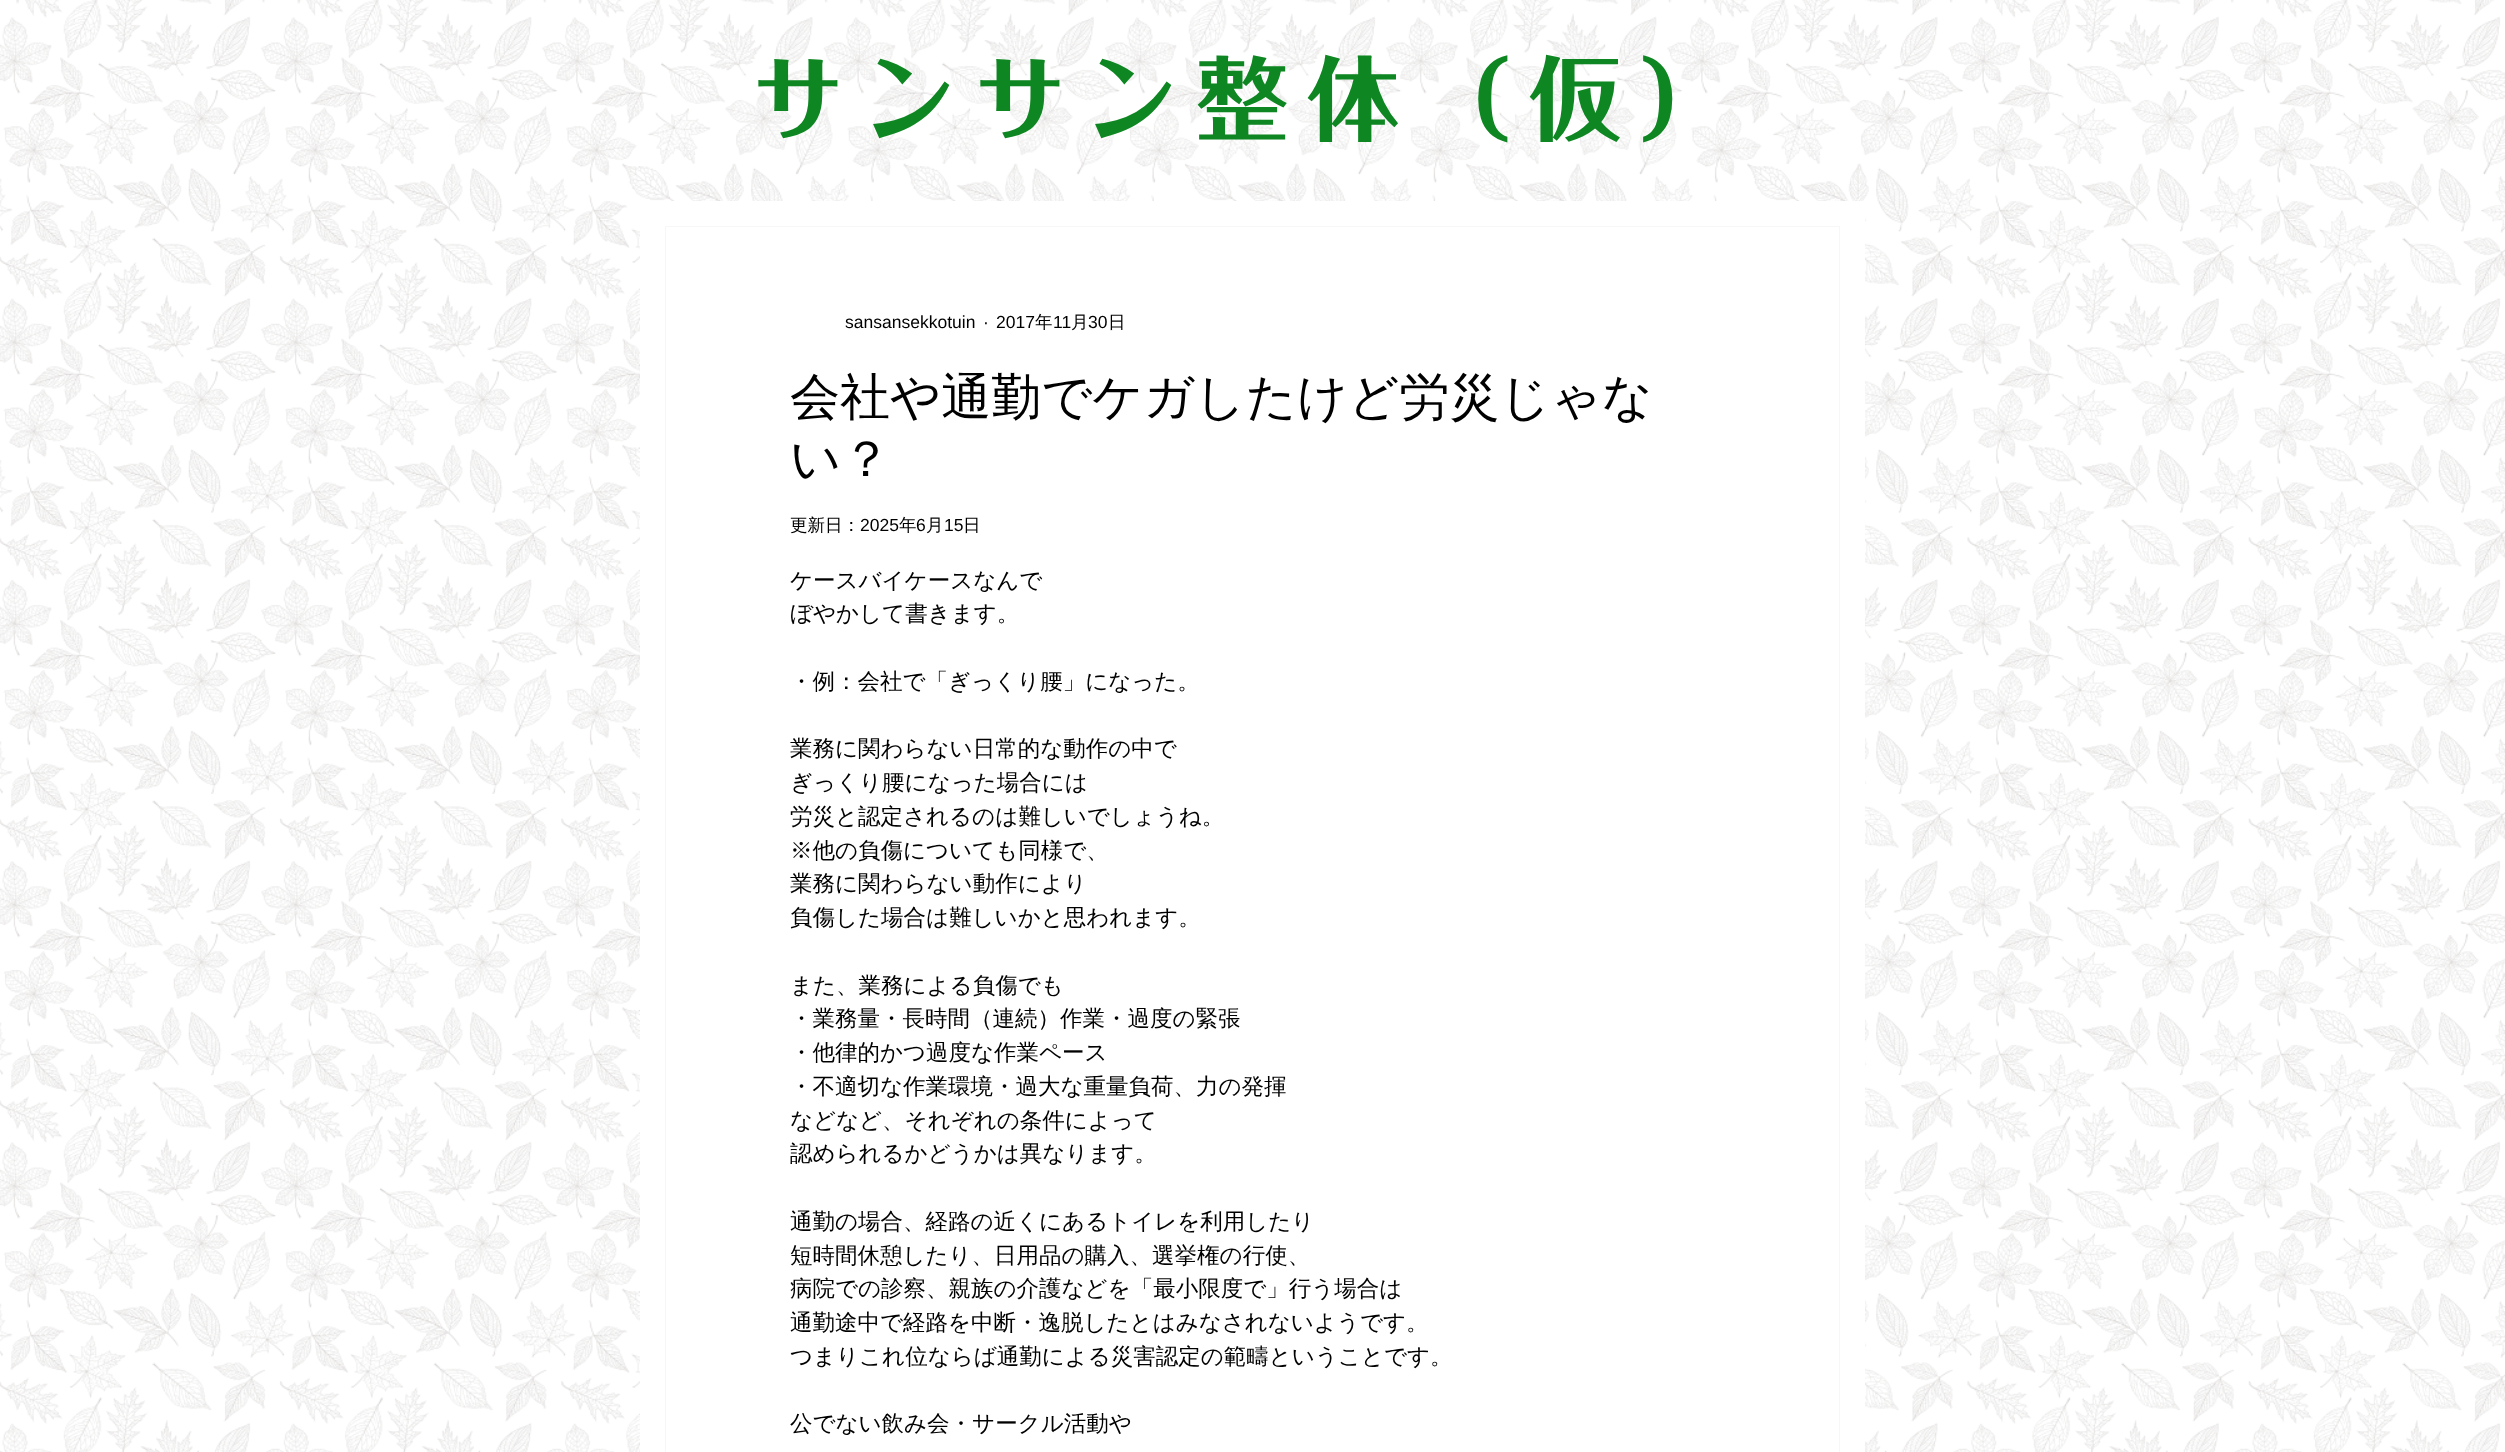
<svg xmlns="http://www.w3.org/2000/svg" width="2505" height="1452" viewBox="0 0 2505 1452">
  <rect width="100%" height="100%" fill="rgb(255,255,255)"/>
  <image x="0" y="0" width="2505" height="1452" href="pic1.png"/>
  <text x="752" y="134" font-family="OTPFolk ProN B" font-size="92.5" font-weight="bold" letter-spacing="18.5" fill="rgb(14,134,34)">サンサン整体（仮）</text>
  <rect x="640" y="201" width="1225" height="1251" fill="rgb(255,255,255)"/>
  <rect x="665.5" y="226.5" width="1174" height="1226" fill="none" stroke="rgb(247,247,247)"/>
  <g font-family="Liberation Sans" font-size="17.5" fill="rgb(0,0,0)">
    <text x="845" y="328">sansansekkotuin</text>
    <text x="983" y="328">·</text>
    <text x="996" y="328">2017</text>
  </g>
  <text x="1035" y="328" font-family="WenQuanYi Zen Hei" font-size="17.5" font-weight="500" fill="rgb(0,0,0)">年</text>
  <text x="1053" y="328" font-family="Liberation Sans" font-size="17.5" fill="rgb(0,0,0)">11</text>
  <text x="1071" y="328" font-family="WenQuanYi Zen Hei" font-size="17.5" font-weight="500" fill="rgb(0,0,0)">月</text>
  <text x="1088" y="328" font-family="Liberation Sans" font-size="17.5" fill="rgb(0,0,0)">30</text>
  <text x="1108" y="328" font-family="WenQuanYi Zen Hei" font-size="17.5" font-weight="500" fill="rgb(0,0,0)">日</text>
  <g font-family="WenQuanYi Zen Hei" font-size="50" font-weight="500" fill="rgb(0,0,0)">
    <text>
      <tspan x="790" y="414">会社や通勤でケガしたけど労災じゃな</tspan>
      <tspan x="790" y="476">い？</tspan>
    </text>
  </g>
  <text x="790" y="531" font-family="WenQuanYi Zen Hei" font-size="17.5" font-weight="500" fill="rgb(0,0,0)">更新日：</text>
  <text x="860" y="531" font-family="Liberation Sans" font-size="17.5" fill="rgb(0,0,0)">2025</text>
  <text x="899" y="531" font-family="WenQuanYi Zen Hei" font-size="17.5" font-weight="500" fill="rgb(0,0,0)">年</text>
  <text x="916" y="531" font-family="Liberation Sans" font-size="17.5" fill="rgb(0,0,0)">6</text>
  <text x="926" y="531" font-family="WenQuanYi Zen Hei" font-size="17.5" font-weight="500" fill="rgb(0,0,0)">月</text>
  <text x="944" y="531" font-family="Liberation Sans" font-size="17.5" fill="rgb(0,0,0)">15</text>
  <text x="963" y="531" font-family="WenQuanYi Zen Hei" font-size="17.5" font-weight="500" fill="rgb(0,0,0)">日</text>
  <g font-family="WenQuanYi Zen Hei" font-size="22.5" font-weight="500" fill="rgb(0,0,0)">
    <text>
      <tspan x="790" y="588">ケースバイケースなんで</tspan>
      <tspan x="790" y="621">ぼやかして書きます。</tspan>
    </text>
    <text x="790" y="689">・例：会社で「ぎっくり腰」になった。</text>
    <text>
      <tspan x="790" y="756">業務に関わらない日常的な動作の中で</tspan>
      <tspan x="790" y="790">ぎっくり腰になった場合には</tspan>
      <tspan x="790" y="824">労災と認定されるのは難しいでしょうね。</tspan>
      <tspan x="790" y="858">※他の負傷についても同様で、</tspan>
      <tspan x="790" y="891">業務に関わらない動作により</tspan>
      <tspan x="790" y="925">負傷した場合は難しいかと思われます。</tspan>
    </text>
    <text>
      <tspan x="790" y="993">また、業務による負傷でも</tspan>
      <tspan x="790" y="1026">・業務量・長時間（連続）作業・過度の緊張</tspan>
      <tspan x="790" y="1060">・他律的かつ過度な作業ペース</tspan>
      <tspan x="790" y="1094">・不適切な作業環境・過大な重量負荷、力の発揮</tspan>
      <tspan x="790" y="1128">などなど、それぞれの条件によって</tspan>
      <tspan x="790" y="1161">認められるかどうかは異なります。</tspan>
    </text>
    <text>
      <tspan x="790" y="1229">通勤の場合、経路の近くにあるトイレを利用したり</tspan>
      <tspan x="790" y="1263">短時間休憩したり、日用品の購入、選挙権の行使、</tspan>
      <tspan x="790" y="1296">病院での診察、親族の介護などを「最小限度で」行う場合は</tspan>
      <tspan x="790" y="1330">通勤途中で経路を中断・逸脱したとはみなされないようです。</tspan>
      <tspan x="790" y="1364">つまりこれ位ならば通勤による災害認定の範疇ということです。</tspan>
    </text>
    <text x="790" y="1431">公でない飲み会・サークル活動や</text>
  </g>
</svg>
